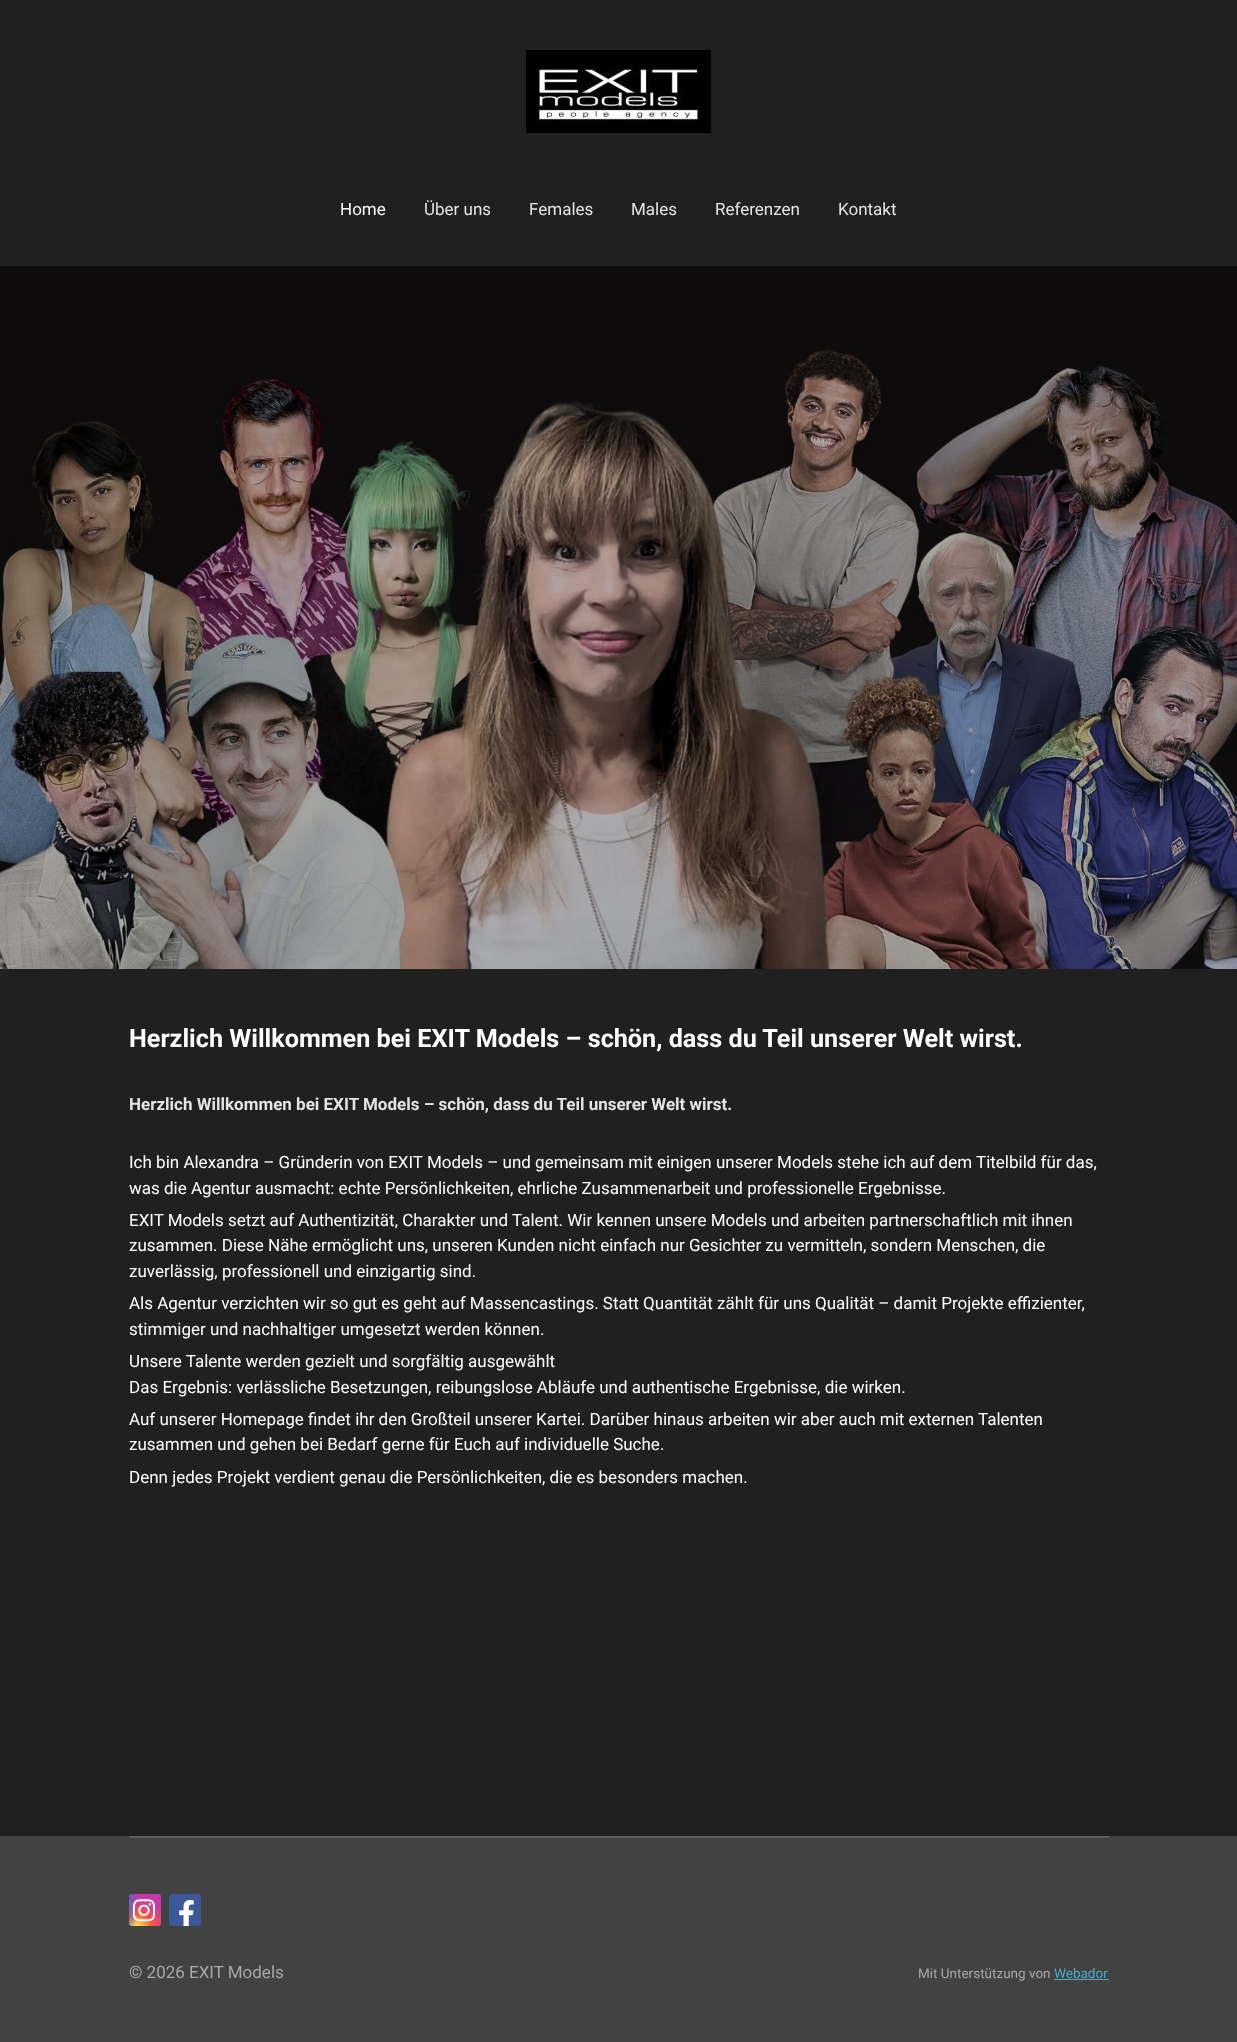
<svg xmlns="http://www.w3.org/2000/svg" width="1237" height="2042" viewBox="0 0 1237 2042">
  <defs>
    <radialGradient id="g1" gradientUnits="userSpaceOnUse" cx="0" cy="0" r="1" gradientTransform="matrix(31 0 0 29 137 1928)"><stop offset="0" stop-color="rgb(255,221,85)"/><stop offset="0.1" stop-color="rgb(255,221,85)"/><stop offset="0.5" stop-color="rgb(255,84,62)"/><stop offset="1" stop-color="rgb(200,55,171)"/></radialGradient>
    <radialGradient id="g2" gradientUnits="userSpaceOnUse" cx="0" cy="0" r="1" gradientTransform="matrix(14 0 0 58 124 1896)"><stop offset="0" stop-color="rgb(55,113,200)"/><stop offset="0.13" stop-color="rgb(55,113,200)"/><stop offset="1" stop-color="rgb(55,113,200)" stop-opacity="0"/></radialGradient>
  </defs>
  <rect width="100%" height="100%" fill="rgb(32,32,32)"/>
  <image x="526" y="50" width="185" height="83" href="pic1.png"/>
  <text x="340" y="215" font-family="Roboto" font-size="17" fill="rgb(255,255,255)">Home</text>
  <g font-family="Roboto" font-size="17" fill="rgb(228,228,228)">
    <text x="424" y="215">Über uns</text>
    <text x="529" y="215">Females</text>
    <text x="631" y="215">Males</text>
    <text x="715" y="215">Referenzen</text>
    <text x="838" y="215">Kontakt</text>
  </g>
  <image x="0" y="266" width="1237" height="703" href="pic2.png"/>
  <text x="129" y="1047" font-family="Roboto" font-size="25.2" font-weight="bold" fill="rgb(255,255,255)">Herzlich Willkommen bei EXIT Models – schön, dass du Teil unserer Welt wirst.</text>
  <text x="129" y="1110" font-family="Roboto" font-size="17" font-weight="bold" fill="rgb(228,228,228)">Herzlich Willkommen bei EXIT Models – schön, dass du Teil unserer Welt wirst.</text>
  <g font-family="Roboto" font-size="17" fill="rgb(255,255,255)">
    <text>
      <tspan x="129" y="1168">Ich bin Alexandra – Gründerin von EXIT Models – und gemeinsam mit einigen unserer Models stehe ich auf dem Titelbild für das,</tspan>
      <tspan x="129" y="1194">was die Agentur ausmacht: echte Persönlichkeiten, ehrliche Zusammenarbeit und professionelle Ergebnisse.</tspan>
      <tspan x="129" y="1226">EXIT Models setzt auf Authentizität, Charakter und Talent. Wir kennen unsere Models und arbeiten partnerschaftlich mit ihnen</tspan>
      <tspan x="129" y="1251">zusammen. Diese Nähe ermöglicht uns, unseren Kunden nicht einfach nur Gesichter zu vermitteln, sondern Menschen, die</tspan>
      <tspan x="129" y="1277">zuverlässig, professionell und einzigartig sind.</tspan>
      <tspan x="129" y="1309">Als Agentur verzichten wir so gut es geht auf Massencastings. Statt Quantität zählt für uns Qualität – damit Projekte effizienter,</tspan>
      <tspan x="129" y="1335">stimmiger und nachhaltiger umgesetzt werden können.</tspan>
      <tspan x="129" y="1367">Unsere Talente werden gezielt und sorgfältig ausgewählt</tspan>
      <tspan x="129" y="1393">Das Ergebnis: verlässliche Besetzungen, reibungslose Abläufe und authentische Ergebnisse, die wirken.</tspan>
      <tspan x="129" y="1425">Auf unserer Homepage findet ihr den Großteil unserer Kartei. Darüber hinaus arbeiten wir aber auch mit externen Talenten</tspan>
      <tspan x="129" y="1450">zusammen und gehen bei Bedarf gerne für Euch auf individuelle Suche.</tspan>
      <tspan x="129" y="1483">Denn jedes Projekt verdient genau die Persönlichkeiten, die es besonders machen.</tspan>
    </text>
  </g>
  <rect x="0" y="1836" width="1237" height="206" fill="rgb(66,66,66)"/>
  <rect x="129" y="1836" width="980" height="2" fill="rgb(94,94,94)"/>
  <rect x="129" y="1894" width="32" height="32" rx="3" fill="url(#g1)"/>
  <rect x="129" y="1894" width="32" height="32" rx="3" fill="url(#g2)"/>
  <image x="133" y="1899" width="22" height="23" href="pic3.png"/>
  <rect x="169" y="1894" width="32" height="32" rx="4" fill="rgb(59,89,152)"/>
  <image x="179" y="1900" width="15" height="26" href="pic4.png"/>
  <text x="129" y="1978" font-family="Roboto" font-size="17" fill="rgb(168,168,168)">© 2026 EXIT Models</text>
  <text x="918" y="1978" font-family="Roboto" font-size="13.5" fill="rgb(168,168,168)">Mit Unterstützung von</text>
  <rect x="1054" y="1979" width="55" height="1" fill="rgb(76,170,201)"/>
  <text x="1054" y="1978" font-family="Roboto" font-size="13.5" fill="rgb(76,170,201)">Webador</text>
</svg>
